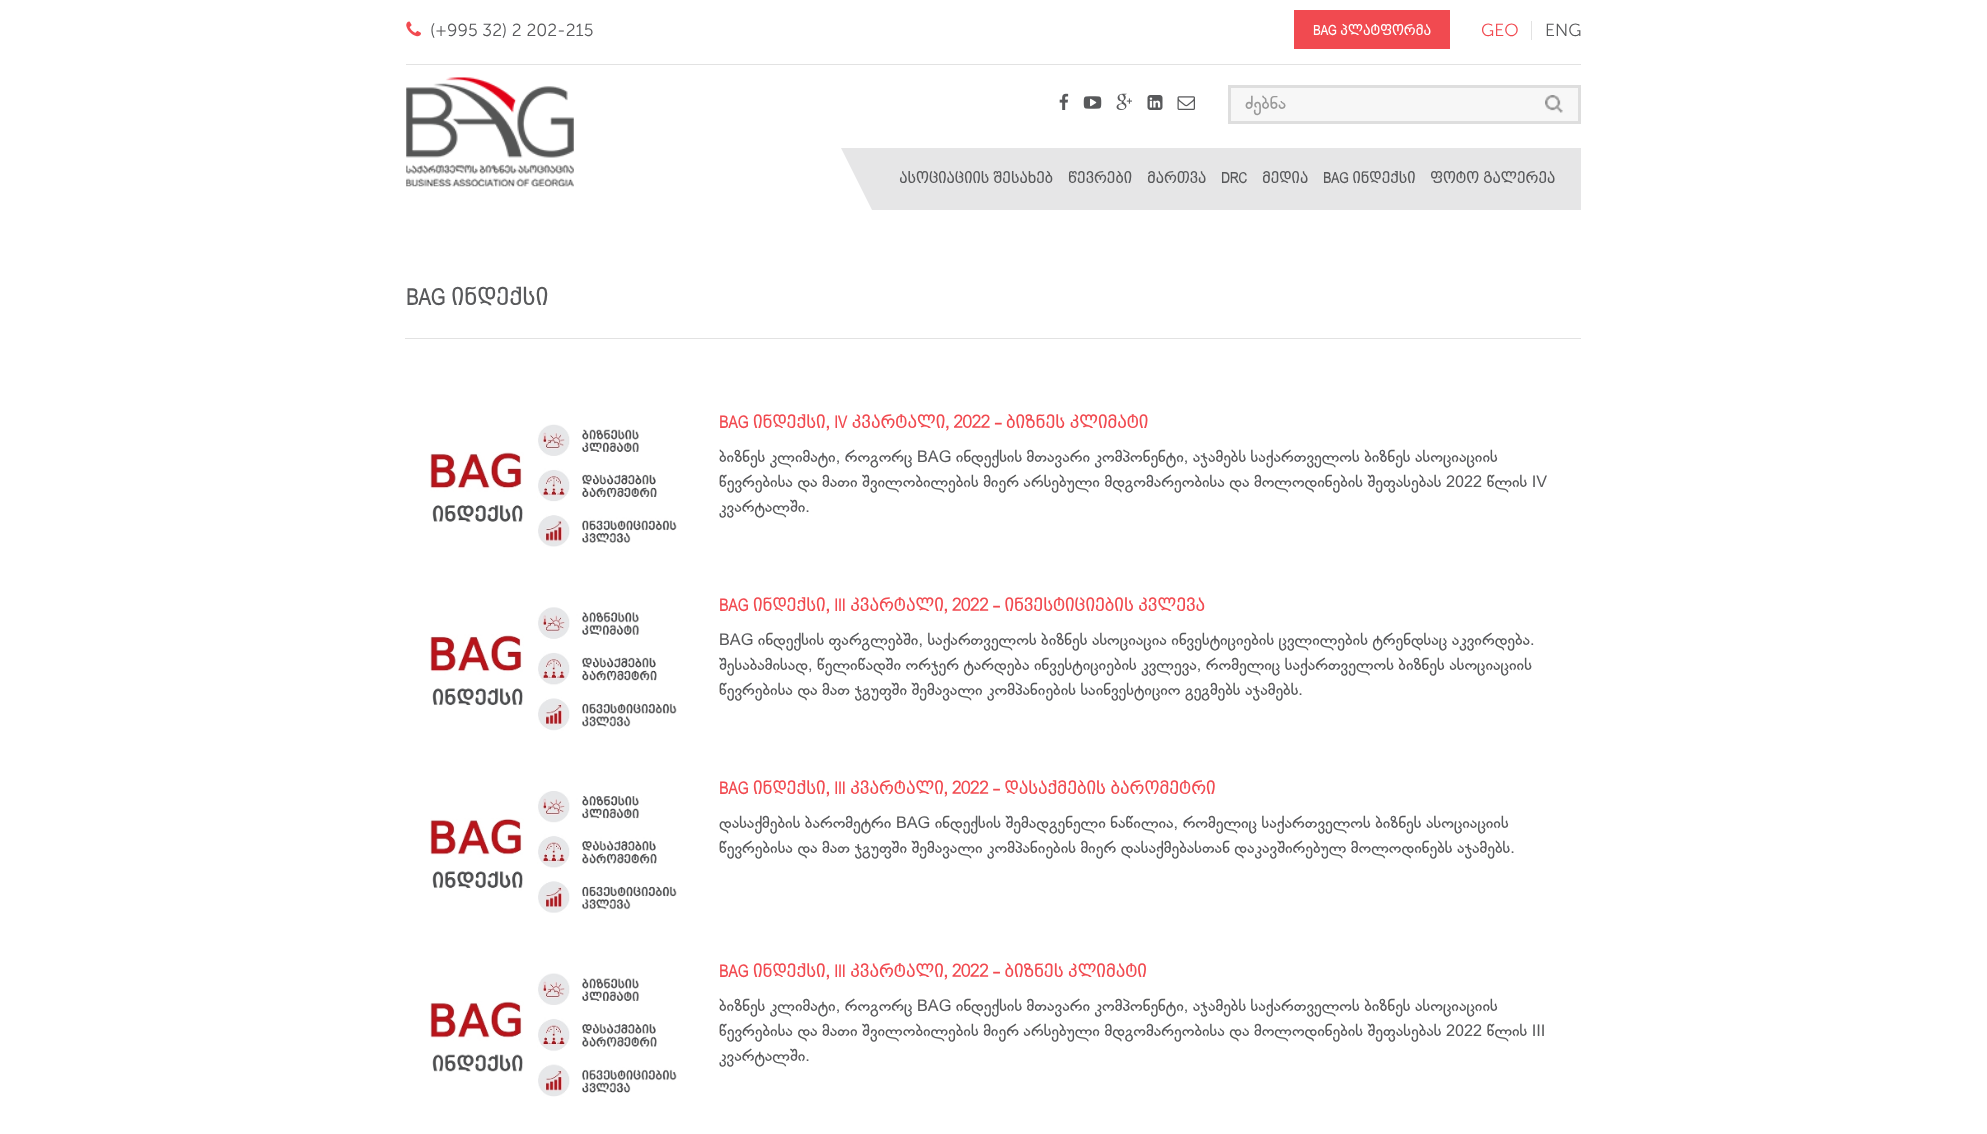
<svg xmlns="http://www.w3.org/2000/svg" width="1987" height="1134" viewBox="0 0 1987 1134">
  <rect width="100%" height="100%" fill="rgb(255,255,255)"/>
  <rect x="406" y="64" width="1175" height="1" fill="rgb(226,226,226)"/>
  <image x="406" y="21" width="15" height="16" href="pic1.png"/>
  <text x="430" y="36" font-family="Museo Sans" font-size="17.5" font-weight="300" fill="rgb(88,89,91)">(+995 32) 2 202-215</text>
  <rect x="1294" y="10" width="156" height="39" fill="rgb(241,74,80)"/>
  <text x="1313" y="35" font-family="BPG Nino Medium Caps" font-size="15" font-weight="bold" font-style="italic" fill="rgb(255,255,255)">BAG პლატფორმა</text>
  <text x="1481" y="36" font-family="Museo Sans" font-size="17.5" font-weight="300" fill="rgb(241,74,80)">GEO</text>
  <rect x="1531" y="21" width="1" height="19" fill="rgb(226,226,226)"/>
  <text x="1545" y="36" font-family="Museo Sans" font-size="17.5" font-weight="300" fill="rgb(88,89,91)">ENG</text>
  <image x="406" y="77" width="168" height="110" href="pic2.png"/>
  <image x="1059" y="93" width="10" height="17" href="pic3.png"/>
  <image x="1083" y="96" width="19" height="13" href="pic4.png"/>
  <image x="1116" y="93" width="16" height="17" href="pic5.png"/>
  <image x="1147" y="95" width="16" height="15" href="pic6.png"/>
  <image x="1177" y="96" width="18" height="14" href="pic7.png"/>
  <rect x="1229.5" y="86.5" width="350" height="36" fill="rgb(247,247,247)" stroke="rgb(222,222,222)" stroke-width="3"/>
  <text x="1245" y="109" font-family="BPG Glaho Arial" font-size="17.5" fill="rgb(153,153,153)">ძებნა</text>
  <image x="1545" y="95" width="18" height="18" href="pic8.png"/>
  <path d="M841 148H1581V210H872Z" fill="rgb(230,230,231)"/>
  <g font-family="BPG Nino Medium Caps" font-size="16.25" font-weight="bold" font-style="italic" fill="rgb(88,89,91)">
    <text x="899" y="183">ასოციაციის შესახებ</text>
    <text x="1068" y="183">წევრები</text>
    <text x="1147" y="183">მართვა</text>
    <text x="1221" y="183">DRC</text>
    <text x="1262" y="183">მედია</text>
    <text x="1323" y="183">BAG ინდექსი</text>
    <text x="1430" y="183">ფოტო გალერეა</text>
  </g>
  <text x="406" y="305" font-family="BPG Nino Medium Caps" font-size="25" font-weight="bold" font-style="italic" fill="rgb(88,89,91)">BAG ინდექსი</text>
  <rect x="405" y="338" width="1176" height="1" fill="rgb(226,226,226)"/>
  <image x="430" y="424" width="247" height="123" href="pic9.png"/>
  <text x="719" y="428" font-family="BPG Nino Medium Caps" font-size="18.75" font-weight="bold" font-style="italic" fill="rgb(241,74,80)">BAG ინდექსი, IV კვარტალი, 2022 - ბიზნეს კლიმატი</text>
  <g font-family="BPG Glaho Arial" font-size="16.25" fill="rgb(88,89,91)">
    <text>
      <tspan x="719" y="462">ბიზნეს კლიმატი, როგორც BAG ინდექსის მთავარი კომპონენტი, აჯამებს საქართველოს ბიზნეს ასოციაციის</tspan>
      <tspan x="719" y="487">წევრებისა და მათი შვილობილების მიერ არსებული მდგომარეობისა და მოლოდინების შეფასებას 2022 წლის IV</tspan>
      <tspan x="719" y="512">კვარტალში.</tspan>
    </text>
  </g>
  <image x="430" y="607" width="247" height="124" href="pic10.png"/>
  <text x="719" y="611" font-family="BPG Nino Medium Caps" font-size="18.75" font-weight="bold" font-style="italic" fill="rgb(241,74,80)">BAG ინდექსი, III კვარტალი, 2022 - ინვესტიციების კვლევა</text>
  <g font-family="BPG Glaho Arial" font-size="16.25" fill="rgb(88,89,91)">
    <text>
      <tspan x="719" y="645">BAG ინდექსის ფარგლებში, საქართველოს ბიზნეს ასოციაცია ინვესტიციების ცვლილების ტრენდსაც აკვირდება.</tspan>
      <tspan x="719" y="670">შესაბამისად, წელიწადში ორჯერ ტარდება ინვესტიციების კვლევა, რომელიც საქართველოს ბიზნეს ასოციაციის</tspan>
      <tspan x="719" y="695">წევრებისა და მათ ჯგუფში შემავალი კომპანიების საინვესტიციო გეგმებს აჯამებს.</tspan>
    </text>
  </g>
  <image x="430" y="791" width="247" height="122" href="pic11.png"/>
  <text x="719" y="794" font-family="BPG Nino Medium Caps" font-size="18.75" font-weight="bold" font-style="italic" fill="rgb(241,74,80)">BAG ინდექსი, III კვარტალი, 2022 - დასაქმების ბარომეტრი</text>
  <g font-family="BPG Glaho Arial" font-size="16.25" fill="rgb(88,89,91)">
    <text>
      <tspan x="719" y="828">დასაქმების ბარომეტრი BAG ინდექსის შემადგენელი ნაწილია, რომელიც საქართველოს ბიზნეს ასოციაციის</tspan>
      <tspan x="719" y="853">წევრებისა და მათ ჯგუფში შემავალი კომპანიების მიერ დასაქმებასთან დაკავშირებულ მოლოდინებს აჯამებს.</tspan>
    </text>
  </g>
  <image x="430" y="973" width="247" height="124" href="pic12.png"/>
  <text x="719" y="977" font-family="BPG Nino Medium Caps" font-size="18.75" font-weight="bold" font-style="italic" fill="rgb(241,74,80)">BAG ინდექსი, III კვარტალი, 2022 - ბიზნეს კლიმატი</text>
  <g font-family="BPG Glaho Arial" font-size="16.25" fill="rgb(88,89,91)">
    <text>
      <tspan x="719" y="1011">ბიზნეს კლიმატი, როგორც BAG ინდექსის მთავარი კომპონენტი, აჯამებს საქართველოს ბიზნეს ასოციაციის</tspan>
      <tspan x="719" y="1036">წევრებისა და მათი შვილობილების მიერ არსებული მდგომარეობისა და მოლოდინების შეფასებას 2022 წლის III</tspan>
      <tspan x="719" y="1061">კვარტალში.</tspan>
    </text>
  </g>
</svg>
